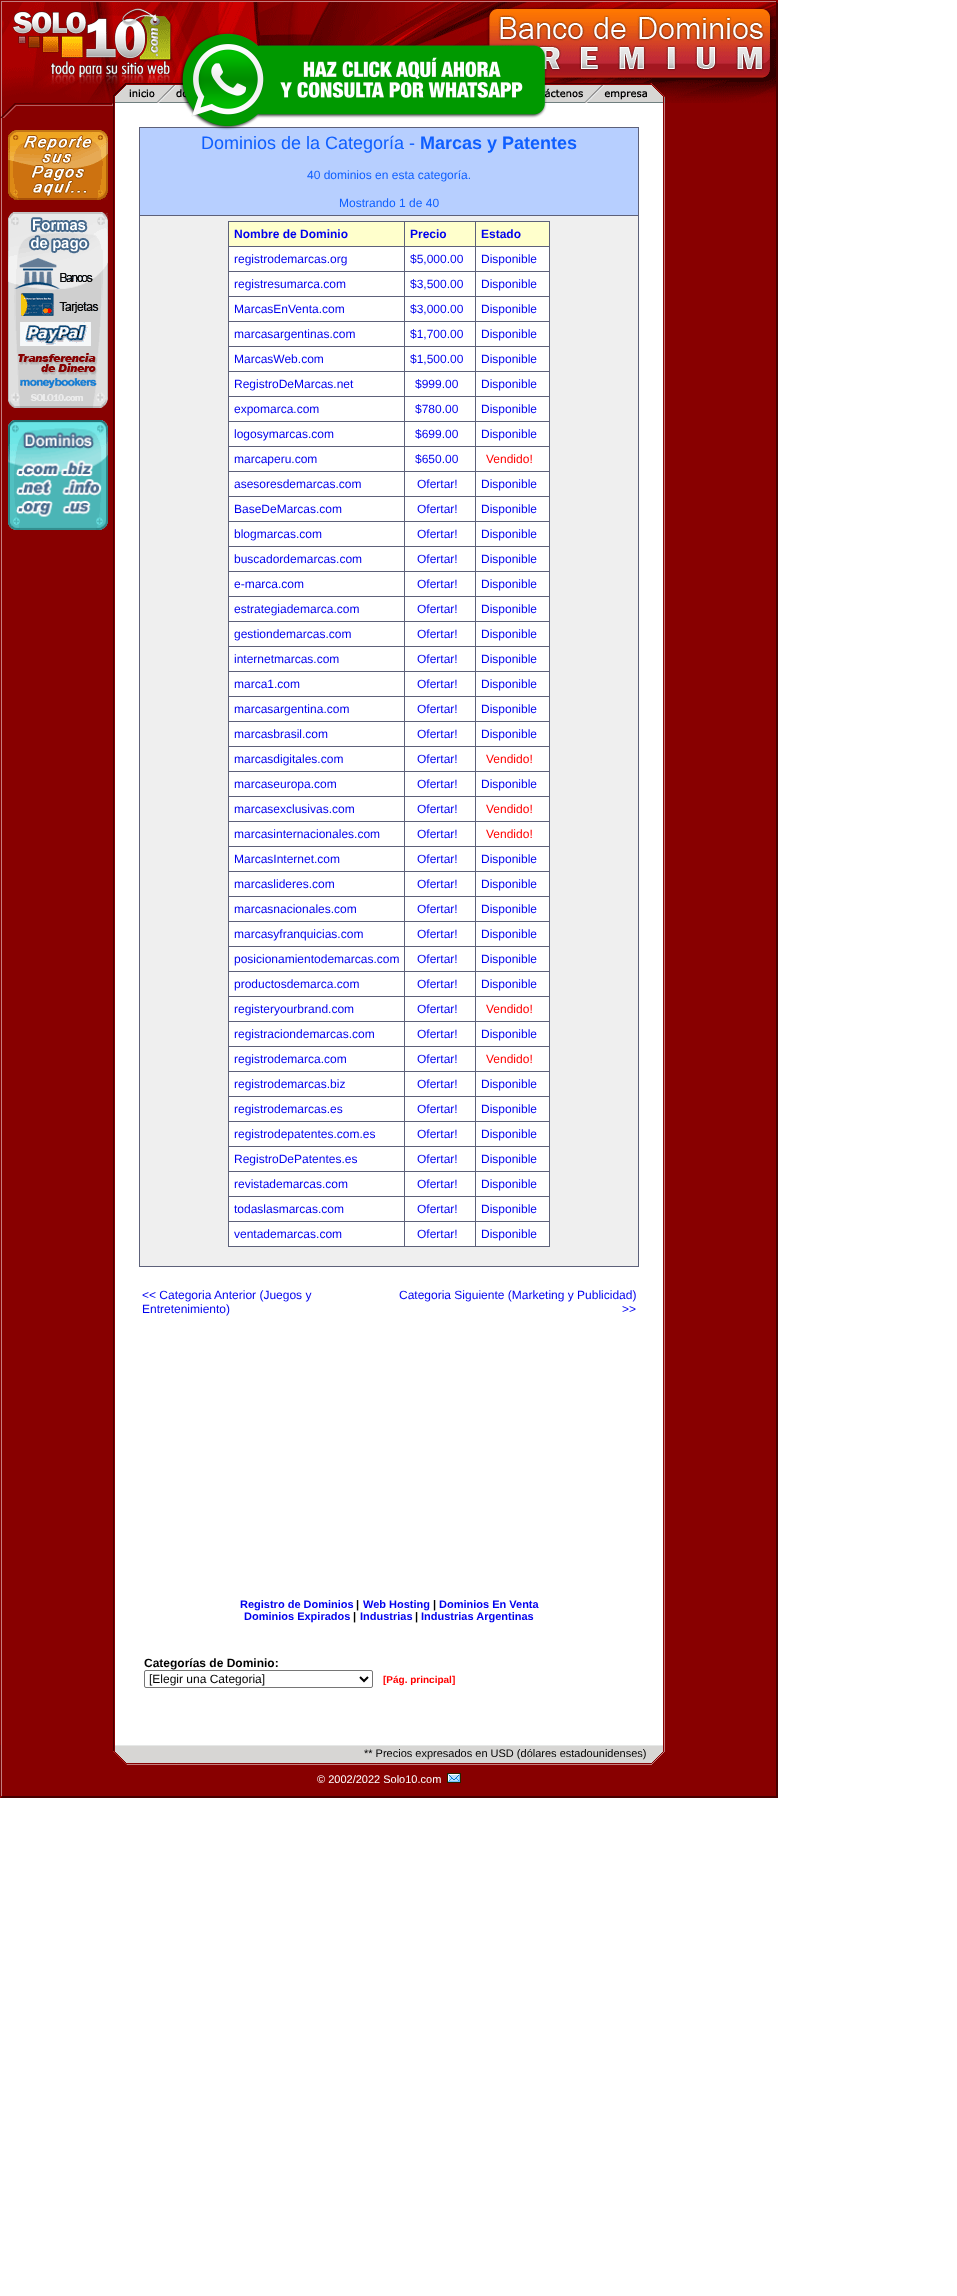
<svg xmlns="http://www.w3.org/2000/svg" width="957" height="2296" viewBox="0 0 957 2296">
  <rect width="100%" height="100%" fill="rgb(255,255,255)"/>
  <image x="0" y="0" width="778" height="1798" href="pic2.png"/>
  <image x="1" y="0" width="777" height="103" href="pic3.png"/>
  <image x="113" y="83" width="552" height="20" href="pic4.png"/>
  <rect x="139" y="127" width="500" height="1" fill="rgb(93,97,122)"/>
  <rect x="140" y="128" width="498" height="87" fill="rgb(183,207,255)"/>
  <image x="179" y="32" width="368" height="98" href="pic1.png"/>
  <image x="0" y="103" width="115" height="15" href="pic5.png"/>
  <image x="8" y="130" width="100" height="70" href="pic6.png"/>
  <image x="8" y="212" width="100" height="196" href="pic7.png"/>
  <image x="8" y="420" width="100" height="110" href="pic8.png"/>
  <rect x="140" y="216" width="498" height="1050" fill="rgb(239,239,239)"/>
  <rect x="638" y="127" width="1" height="1140" fill="rgb(93,97,122)"/>
  <rect x="139" y="1266" width="500" height="1" fill="rgb(93,97,122)"/>
  <rect x="139" y="127" width="1" height="1140" fill="rgb(93,97,122)"/>
  <text x="201" y="149" font-family="Liberation Sans" font-size="18" fill="rgb(15,95,255)">Dominios de la Categoría -</text>
  <text x="420" y="149" font-family="Liberation Sans" font-size="18" font-weight="bold" fill="rgb(15,95,255)">Marcas y Patentes</text>
  <g font-family="Liberation Sans" font-size="12" fill="rgb(15,95,255)">
    <text x="307" y="179">40 dominios en esta categoría.</text>
    <text x="339" y="207">Mostrando 1 de 40</text>
  </g>
  <rect x="139" y="215" width="500" height="1" fill="rgb(93,97,122)"/>
  <rect x="229" y="247" width="320" height="999" fill="rgb(255,255,255)"/>
  <rect x="228" y="221" width="322" height="1" fill="rgb(93,97,122)"/>
  <rect x="549" y="221" width="1" height="1026" fill="rgb(93,97,122)"/>
  <rect x="228" y="1246" width="322" height="1" fill="rgb(93,97,122)"/>
  <rect x="228" y="221" width="1" height="1026" fill="rgb(93,97,122)"/>
  <rect x="229" y="222" width="320" height="24" fill="rgb(255,255,204)"/>
  <text x="234" y="238" font-family="Liberation Sans" font-size="12" font-weight="bold" fill="rgb(0,0,238)">Nombre de Dominio</text>
  <rect x="475" y="246" width="75" height="1" fill="rgb(93,97,122)"/>
  <rect x="475" y="271" width="75" height="1" fill="rgb(93,97,122)"/>
  <rect x="475" y="296" width="75" height="1" fill="rgb(93,97,122)"/>
  <rect x="475" y="321" width="75" height="1" fill="rgb(93,97,122)"/>
  <rect x="475" y="346" width="75" height="1" fill="rgb(93,97,122)"/>
  <rect x="475" y="371" width="75" height="1" fill="rgb(93,97,122)"/>
  <rect x="475" y="396" width="75" height="1" fill="rgb(93,97,122)"/>
  <rect x="475" y="421" width="75" height="1" fill="rgb(93,97,122)"/>
  <rect x="475" y="446" width="75" height="1" fill="rgb(93,97,122)"/>
  <rect x="475" y="471" width="75" height="1" fill="rgb(93,97,122)"/>
  <rect x="475" y="496" width="75" height="1" fill="rgb(93,97,122)"/>
  <rect x="475" y="521" width="75" height="1" fill="rgb(93,97,122)"/>
  <rect x="475" y="546" width="75" height="1" fill="rgb(93,97,122)"/>
  <rect x="475" y="571" width="75" height="1" fill="rgb(93,97,122)"/>
  <rect x="475" y="596" width="75" height="1" fill="rgb(93,97,122)"/>
  <rect x="475" y="621" width="75" height="1" fill="rgb(93,97,122)"/>
  <rect x="475" y="646" width="75" height="1" fill="rgb(93,97,122)"/>
  <rect x="475" y="671" width="75" height="1" fill="rgb(93,97,122)"/>
  <rect x="475" y="696" width="75" height="1" fill="rgb(93,97,122)"/>
  <rect x="475" y="721" width="75" height="1" fill="rgb(93,97,122)"/>
  <rect x="475" y="746" width="75" height="1" fill="rgb(93,97,122)"/>
  <rect x="475" y="771" width="75" height="1" fill="rgb(93,97,122)"/>
  <rect x="475" y="796" width="75" height="1" fill="rgb(93,97,122)"/>
  <rect x="475" y="821" width="75" height="1" fill="rgb(93,97,122)"/>
  <rect x="475" y="846" width="75" height="1" fill="rgb(93,97,122)"/>
  <rect x="475" y="871" width="75" height="1" fill="rgb(93,97,122)"/>
  <rect x="475" y="896" width="75" height="1" fill="rgb(93,97,122)"/>
  <rect x="475" y="921" width="75" height="1" fill="rgb(93,97,122)"/>
  <rect x="475" y="946" width="75" height="1" fill="rgb(93,97,122)"/>
  <rect x="475" y="971" width="75" height="1" fill="rgb(93,97,122)"/>
  <rect x="475" y="996" width="75" height="1" fill="rgb(93,97,122)"/>
  <rect x="475" y="1021" width="75" height="1" fill="rgb(93,97,122)"/>
  <rect x="475" y="1046" width="75" height="1" fill="rgb(93,97,122)"/>
  <rect x="475" y="1071" width="75" height="1" fill="rgb(93,97,122)"/>
  <rect x="475" y="1096" width="75" height="1" fill="rgb(93,97,122)"/>
  <rect x="475" y="1121" width="75" height="1" fill="rgb(93,97,122)"/>
  <rect x="475" y="1146" width="75" height="1" fill="rgb(93,97,122)"/>
  <rect x="475" y="1171" width="75" height="1" fill="rgb(93,97,122)"/>
  <rect x="475" y="1196" width="75" height="1" fill="rgb(93,97,122)"/>
  <rect x="475" y="1221" width="75" height="1" fill="rgb(93,97,122)"/>
  <rect x="475" y="1221" width="1" height="26" fill="rgb(93,97,122)"/>
  <rect x="404" y="1221" width="72" height="1" fill="rgb(93,97,122)"/>
  <rect x="475" y="1196" width="1" height="26" fill="rgb(93,97,122)"/>
  <rect x="404" y="1196" width="72" height="1" fill="rgb(93,97,122)"/>
  <rect x="475" y="1171" width="1" height="26" fill="rgb(93,97,122)"/>
  <rect x="404" y="1171" width="72" height="1" fill="rgb(93,97,122)"/>
  <rect x="475" y="1146" width="1" height="26" fill="rgb(93,97,122)"/>
  <rect x="404" y="1146" width="72" height="1" fill="rgb(93,97,122)"/>
  <rect x="475" y="1121" width="1" height="26" fill="rgb(93,97,122)"/>
  <rect x="404" y="1121" width="72" height="1" fill="rgb(93,97,122)"/>
  <rect x="475" y="1096" width="1" height="26" fill="rgb(93,97,122)"/>
  <rect x="404" y="1096" width="72" height="1" fill="rgb(93,97,122)"/>
  <rect x="475" y="1071" width="1" height="26" fill="rgb(93,97,122)"/>
  <rect x="404" y="1071" width="72" height="1" fill="rgb(93,97,122)"/>
  <rect x="475" y="1046" width="1" height="26" fill="rgb(93,97,122)"/>
  <rect x="404" y="1046" width="72" height="1" fill="rgb(93,97,122)"/>
  <rect x="475" y="1021" width="1" height="26" fill="rgb(93,97,122)"/>
  <rect x="404" y="1021" width="72" height="1" fill="rgb(93,97,122)"/>
  <rect x="475" y="996" width="1" height="26" fill="rgb(93,97,122)"/>
  <rect x="404" y="996" width="72" height="1" fill="rgb(93,97,122)"/>
  <rect x="475" y="971" width="1" height="26" fill="rgb(93,97,122)"/>
  <rect x="404" y="971" width="72" height="1" fill="rgb(93,97,122)"/>
  <rect x="475" y="946" width="1" height="26" fill="rgb(93,97,122)"/>
  <rect x="404" y="946" width="72" height="1" fill="rgb(93,97,122)"/>
  <rect x="475" y="921" width="1" height="26" fill="rgb(93,97,122)"/>
  <rect x="404" y="921" width="72" height="1" fill="rgb(93,97,122)"/>
  <rect x="475" y="896" width="1" height="26" fill="rgb(93,97,122)"/>
  <rect x="404" y="896" width="72" height="1" fill="rgb(93,97,122)"/>
  <rect x="475" y="871" width="1" height="26" fill="rgb(93,97,122)"/>
  <rect x="404" y="871" width="72" height="1" fill="rgb(93,97,122)"/>
  <rect x="475" y="846" width="1" height="26" fill="rgb(93,97,122)"/>
  <rect x="404" y="846" width="72" height="1" fill="rgb(93,97,122)"/>
  <rect x="475" y="821" width="1" height="26" fill="rgb(93,97,122)"/>
  <rect x="404" y="821" width="72" height="1" fill="rgb(93,97,122)"/>
  <rect x="475" y="796" width="1" height="26" fill="rgb(93,97,122)"/>
  <rect x="404" y="796" width="72" height="1" fill="rgb(93,97,122)"/>
  <rect x="475" y="771" width="1" height="26" fill="rgb(93,97,122)"/>
  <rect x="404" y="771" width="72" height="1" fill="rgb(93,97,122)"/>
  <rect x="475" y="746" width="1" height="26" fill="rgb(93,97,122)"/>
  <rect x="404" y="746" width="72" height="1" fill="rgb(93,97,122)"/>
  <rect x="475" y="721" width="1" height="26" fill="rgb(93,97,122)"/>
  <rect x="404" y="721" width="72" height="1" fill="rgb(93,97,122)"/>
  <rect x="475" y="696" width="1" height="26" fill="rgb(93,97,122)"/>
  <rect x="404" y="696" width="72" height="1" fill="rgb(93,97,122)"/>
  <rect x="475" y="671" width="1" height="26" fill="rgb(93,97,122)"/>
  <rect x="404" y="671" width="72" height="1" fill="rgb(93,97,122)"/>
  <rect x="475" y="646" width="1" height="26" fill="rgb(93,97,122)"/>
  <rect x="404" y="646" width="72" height="1" fill="rgb(93,97,122)"/>
  <rect x="475" y="621" width="1" height="26" fill="rgb(93,97,122)"/>
  <rect x="404" y="621" width="72" height="1" fill="rgb(93,97,122)"/>
  <rect x="475" y="596" width="1" height="26" fill="rgb(93,97,122)"/>
  <rect x="404" y="596" width="72" height="1" fill="rgb(93,97,122)"/>
  <rect x="475" y="571" width="1" height="26" fill="rgb(93,97,122)"/>
  <rect x="404" y="571" width="72" height="1" fill="rgb(93,97,122)"/>
  <rect x="475" y="546" width="1" height="26" fill="rgb(93,97,122)"/>
  <rect x="404" y="546" width="72" height="1" fill="rgb(93,97,122)"/>
  <rect x="475" y="521" width="1" height="26" fill="rgb(93,97,122)"/>
  <rect x="404" y="521" width="72" height="1" fill="rgb(93,97,122)"/>
  <rect x="475" y="496" width="1" height="26" fill="rgb(93,97,122)"/>
  <rect x="404" y="496" width="72" height="1" fill="rgb(93,97,122)"/>
  <rect x="475" y="471" width="1" height="26" fill="rgb(93,97,122)"/>
  <rect x="404" y="471" width="72" height="1" fill="rgb(93,97,122)"/>
  <rect x="475" y="446" width="1" height="26" fill="rgb(93,97,122)"/>
  <rect x="404" y="446" width="72" height="1" fill="rgb(93,97,122)"/>
  <rect x="475" y="421" width="1" height="26" fill="rgb(93,97,122)"/>
  <rect x="404" y="421" width="72" height="1" fill="rgb(93,97,122)"/>
  <rect x="475" y="396" width="1" height="26" fill="rgb(93,97,122)"/>
  <rect x="404" y="396" width="72" height="1" fill="rgb(93,97,122)"/>
  <rect x="475" y="371" width="1" height="26" fill="rgb(93,97,122)"/>
  <rect x="404" y="371" width="72" height="1" fill="rgb(93,97,122)"/>
  <rect x="475" y="346" width="1" height="26" fill="rgb(93,97,122)"/>
  <rect x="404" y="346" width="72" height="1" fill="rgb(93,97,122)"/>
  <rect x="475" y="321" width="1" height="26" fill="rgb(93,97,122)"/>
  <rect x="404" y="321" width="72" height="1" fill="rgb(93,97,122)"/>
  <rect x="475" y="296" width="1" height="26" fill="rgb(93,97,122)"/>
  <rect x="404" y="296" width="72" height="1" fill="rgb(93,97,122)"/>
  <rect x="475" y="271" width="1" height="26" fill="rgb(93,97,122)"/>
  <rect x="404" y="271" width="72" height="1" fill="rgb(93,97,122)"/>
  <rect x="475" y="246" width="1" height="26" fill="rgb(93,97,122)"/>
  <rect x="404" y="246" width="72" height="1" fill="rgb(93,97,122)"/>
  <rect x="404" y="1221" width="1" height="26" fill="rgb(93,97,122)"/>
  <rect x="228" y="1221" width="177" height="1" fill="rgb(93,97,122)"/>
  <rect x="404" y="1196" width="1" height="26" fill="rgb(93,97,122)"/>
  <rect x="228" y="1196" width="177" height="1" fill="rgb(93,97,122)"/>
  <rect x="404" y="1171" width="1" height="26" fill="rgb(93,97,122)"/>
  <rect x="228" y="1171" width="177" height="1" fill="rgb(93,97,122)"/>
  <rect x="404" y="1146" width="1" height="26" fill="rgb(93,97,122)"/>
  <rect x="228" y="1146" width="177" height="1" fill="rgb(93,97,122)"/>
  <rect x="404" y="1121" width="1" height="26" fill="rgb(93,97,122)"/>
  <rect x="228" y="1121" width="177" height="1" fill="rgb(93,97,122)"/>
  <rect x="404" y="1096" width="1" height="26" fill="rgb(93,97,122)"/>
  <rect x="228" y="1096" width="177" height="1" fill="rgb(93,97,122)"/>
  <rect x="404" y="1071" width="1" height="26" fill="rgb(93,97,122)"/>
  <rect x="228" y="1071" width="177" height="1" fill="rgb(93,97,122)"/>
  <rect x="404" y="1046" width="1" height="26" fill="rgb(93,97,122)"/>
  <rect x="228" y="1046" width="177" height="1" fill="rgb(93,97,122)"/>
  <rect x="404" y="1021" width="1" height="26" fill="rgb(93,97,122)"/>
  <rect x="228" y="1021" width="177" height="1" fill="rgb(93,97,122)"/>
  <rect x="404" y="996" width="1" height="26" fill="rgb(93,97,122)"/>
  <rect x="228" y="996" width="177" height="1" fill="rgb(93,97,122)"/>
  <rect x="404" y="971" width="1" height="26" fill="rgb(93,97,122)"/>
  <rect x="228" y="971" width="177" height="1" fill="rgb(93,97,122)"/>
  <rect x="404" y="946" width="1" height="26" fill="rgb(93,97,122)"/>
  <rect x="228" y="946" width="177" height="1" fill="rgb(93,97,122)"/>
  <rect x="404" y="921" width="1" height="26" fill="rgb(93,97,122)"/>
  <rect x="228" y="921" width="177" height="1" fill="rgb(93,97,122)"/>
  <rect x="404" y="896" width="1" height="26" fill="rgb(93,97,122)"/>
  <rect x="228" y="896" width="177" height="1" fill="rgb(93,97,122)"/>
  <rect x="404" y="871" width="1" height="26" fill="rgb(93,97,122)"/>
  <rect x="228" y="871" width="177" height="1" fill="rgb(93,97,122)"/>
  <rect x="404" y="846" width="1" height="26" fill="rgb(93,97,122)"/>
  <rect x="228" y="846" width="177" height="1" fill="rgb(93,97,122)"/>
  <rect x="404" y="821" width="1" height="26" fill="rgb(93,97,122)"/>
  <rect x="228" y="821" width="177" height="1" fill="rgb(93,97,122)"/>
  <rect x="404" y="796" width="1" height="26" fill="rgb(93,97,122)"/>
  <rect x="228" y="796" width="177" height="1" fill="rgb(93,97,122)"/>
  <rect x="404" y="771" width="1" height="26" fill="rgb(93,97,122)"/>
  <rect x="228" y="771" width="177" height="1" fill="rgb(93,97,122)"/>
  <rect x="404" y="746" width="1" height="26" fill="rgb(93,97,122)"/>
  <rect x="228" y="746" width="177" height="1" fill="rgb(93,97,122)"/>
  <rect x="404" y="721" width="1" height="26" fill="rgb(93,97,122)"/>
  <rect x="228" y="721" width="177" height="1" fill="rgb(93,97,122)"/>
  <rect x="404" y="696" width="1" height="26" fill="rgb(93,97,122)"/>
  <rect x="228" y="696" width="177" height="1" fill="rgb(93,97,122)"/>
  <rect x="404" y="671" width="1" height="26" fill="rgb(93,97,122)"/>
  <rect x="228" y="671" width="177" height="1" fill="rgb(93,97,122)"/>
  <rect x="404" y="646" width="1" height="26" fill="rgb(93,97,122)"/>
  <rect x="228" y="646" width="177" height="1" fill="rgb(93,97,122)"/>
  <rect x="404" y="621" width="1" height="26" fill="rgb(93,97,122)"/>
  <rect x="228" y="621" width="177" height="1" fill="rgb(93,97,122)"/>
  <rect x="404" y="596" width="1" height="26" fill="rgb(93,97,122)"/>
  <rect x="228" y="596" width="177" height="1" fill="rgb(93,97,122)"/>
  <rect x="404" y="571" width="1" height="26" fill="rgb(93,97,122)"/>
  <rect x="228" y="571" width="177" height="1" fill="rgb(93,97,122)"/>
  <rect x="404" y="546" width="1" height="26" fill="rgb(93,97,122)"/>
  <rect x="228" y="546" width="177" height="1" fill="rgb(93,97,122)"/>
  <rect x="404" y="521" width="1" height="26" fill="rgb(93,97,122)"/>
  <rect x="228" y="521" width="177" height="1" fill="rgb(93,97,122)"/>
  <rect x="404" y="496" width="1" height="26" fill="rgb(93,97,122)"/>
  <rect x="228" y="496" width="177" height="1" fill="rgb(93,97,122)"/>
  <rect x="404" y="471" width="1" height="26" fill="rgb(93,97,122)"/>
  <rect x="228" y="471" width="177" height="1" fill="rgb(93,97,122)"/>
  <rect x="404" y="446" width="1" height="26" fill="rgb(93,97,122)"/>
  <rect x="228" y="446" width="177" height="1" fill="rgb(93,97,122)"/>
  <rect x="404" y="421" width="1" height="26" fill="rgb(93,97,122)"/>
  <rect x="228" y="421" width="177" height="1" fill="rgb(93,97,122)"/>
  <rect x="404" y="396" width="1" height="26" fill="rgb(93,97,122)"/>
  <rect x="228" y="396" width="177" height="1" fill="rgb(93,97,122)"/>
  <rect x="404" y="371" width="1" height="26" fill="rgb(93,97,122)"/>
  <rect x="228" y="371" width="177" height="1" fill="rgb(93,97,122)"/>
  <rect x="404" y="346" width="1" height="26" fill="rgb(93,97,122)"/>
  <rect x="228" y="346" width="177" height="1" fill="rgb(93,97,122)"/>
  <rect x="404" y="321" width="1" height="26" fill="rgb(93,97,122)"/>
  <rect x="228" y="321" width="177" height="1" fill="rgb(93,97,122)"/>
  <rect x="404" y="296" width="1" height="26" fill="rgb(93,97,122)"/>
  <rect x="228" y="296" width="177" height="1" fill="rgb(93,97,122)"/>
  <rect x="404" y="271" width="1" height="26" fill="rgb(93,97,122)"/>
  <rect x="228" y="271" width="177" height="1" fill="rgb(93,97,122)"/>
  <rect x="404" y="246" width="1" height="26" fill="rgb(93,97,122)"/>
  <rect x="228" y="246" width="177" height="1" fill="rgb(93,97,122)"/>
  <rect x="404" y="221" width="1" height="26" fill="rgb(93,97,122)"/>
  <text x="410" y="238" font-family="Liberation Sans" font-size="12" font-weight="bold" fill="rgb(0,0,238)">Precio</text>
  <rect x="475" y="221" width="1" height="26" fill="rgb(93,97,122)"/>
  <text x="481" y="238" font-family="Liberation Sans" font-size="12" font-weight="bold" fill="rgb(0,0,238)">Estado</text>
  <g font-family="Liberation Sans" font-size="12" fill="rgb(0,0,238)">
    <text x="234" y="263">registrodemarcas.org</text>
    <text x="410" y="263">$5,000.00</text>
    <text x="481" y="263">Disponible</text>
    <text x="234" y="288">registresumarca.com</text>
    <text x="410" y="288">$3,500.00</text>
    <text x="481" y="288">Disponible</text>
    <text x="234" y="313">MarcasEnVenta.com</text>
    <text x="410" y="313">$3,000.00</text>
    <text x="481" y="313">Disponible</text>
    <text x="234" y="338">marcasargentinas.com</text>
    <text x="410" y="338">$1,700.00</text>
    <text x="481" y="338">Disponible</text>
    <text x="234" y="363">MarcasWeb.com</text>
    <text x="410" y="363">$1,500.00</text>
    <text x="481" y="363">Disponible</text>
    <text x="234" y="388">RegistroDeMarcas.net</text>
    <text x="415" y="388">$999.00</text>
    <text x="481" y="388">Disponible</text>
    <text x="234" y="413">expomarca.com</text>
    <text x="415" y="413">$780.00</text>
    <text x="481" y="413">Disponible</text>
    <text x="234" y="438">logosymarcas.com</text>
    <text x="415" y="438">$699.00</text>
    <text x="481" y="438">Disponible</text>
    <text x="234" y="463">marcaperu.com</text>
    <text x="415" y="463">$650.00</text>
  </g>
  <text x="486" y="463" font-family="Liberation Sans" font-size="12" fill="rgb(255,0,0)">Vendido!</text>
  <g font-family="Liberation Sans" font-size="12" fill="rgb(0,0,238)">
    <text x="234" y="488">asesoresdemarcas.com</text>
    <text x="417" y="488">Ofertar!</text>
    <text x="481" y="488">Disponible</text>
    <text x="234" y="513">BaseDeMarcas.com</text>
    <text x="417" y="513">Ofertar!</text>
    <text x="481" y="513">Disponible</text>
    <text x="234" y="538">blogmarcas.com</text>
    <text x="417" y="538">Ofertar!</text>
    <text x="481" y="538">Disponible</text>
    <text x="234" y="563">buscadordemarcas.com</text>
    <text x="417" y="563">Ofertar!</text>
    <text x="481" y="563">Disponible</text>
    <text x="234" y="588">e-marca.com</text>
    <text x="417" y="588">Ofertar!</text>
    <text x="481" y="588">Disponible</text>
    <text x="234" y="613">estrategiademarca.com</text>
    <text x="417" y="613">Ofertar!</text>
    <text x="481" y="613">Disponible</text>
    <text x="234" y="638">gestiondemarcas.com</text>
    <text x="417" y="638">Ofertar!</text>
    <text x="481" y="638">Disponible</text>
    <text x="234" y="663">internetmarcas.com</text>
    <text x="417" y="663">Ofertar!</text>
    <text x="481" y="663">Disponible</text>
    <text x="234" y="688">marca1.com</text>
    <text x="417" y="688">Ofertar!</text>
    <text x="481" y="688">Disponible</text>
    <text x="234" y="713">marcasargentina.com</text>
    <text x="417" y="713">Ofertar!</text>
    <text x="481" y="713">Disponible</text>
    <text x="234" y="738">marcasbrasil.com</text>
    <text x="417" y="738">Ofertar!</text>
    <text x="481" y="738">Disponible</text>
    <text x="234" y="763">marcasdigitales.com</text>
    <text x="417" y="763">Ofertar!</text>
  </g>
  <text x="486" y="763" font-family="Liberation Sans" font-size="12" fill="rgb(255,0,0)">Vendido!</text>
  <g font-family="Liberation Sans" font-size="12" fill="rgb(0,0,238)">
    <text x="234" y="788">marcaseuropa.com</text>
    <text x="417" y="788">Ofertar!</text>
    <text x="481" y="788">Disponible</text>
    <text x="234" y="813">marcasexclusivas.com</text>
    <text x="417" y="813">Ofertar!</text>
  </g>
  <text x="486" y="813" font-family="Liberation Sans" font-size="12" fill="rgb(255,0,0)">Vendido!</text>
  <g font-family="Liberation Sans" font-size="12" fill="rgb(0,0,238)">
    <text x="234" y="838">marcasinternacionales.com</text>
    <text x="417" y="838">Ofertar!</text>
  </g>
  <text x="486" y="838" font-family="Liberation Sans" font-size="12" fill="rgb(255,0,0)">Vendido!</text>
  <g font-family="Liberation Sans" font-size="12" fill="rgb(0,0,238)">
    <text x="234" y="863">MarcasInternet.com</text>
    <text x="417" y="863">Ofertar!</text>
    <text x="481" y="863">Disponible</text>
    <text x="234" y="888">marcaslideres.com</text>
    <text x="417" y="888">Ofertar!</text>
    <text x="481" y="888">Disponible</text>
    <text x="234" y="913">marcasnacionales.com</text>
    <text x="417" y="913">Ofertar!</text>
    <text x="481" y="913">Disponible</text>
    <text x="234" y="938">marcasyfranquicias.com</text>
    <text x="417" y="938">Ofertar!</text>
    <text x="481" y="938">Disponible</text>
    <text x="234" y="963">posicionamientodemarcas.com</text>
    <text x="417" y="963">Ofertar!</text>
    <text x="481" y="963">Disponible</text>
    <text x="234" y="988">productosdemarca.com</text>
    <text x="417" y="988">Ofertar!</text>
    <text x="481" y="988">Disponible</text>
    <text x="234" y="1013">registeryourbrand.com</text>
    <text x="417" y="1013">Ofertar!</text>
  </g>
  <text x="486" y="1013" font-family="Liberation Sans" font-size="12" fill="rgb(255,0,0)">Vendido!</text>
  <g font-family="Liberation Sans" font-size="12" fill="rgb(0,0,238)">
    <text x="234" y="1038">registraciondemarcas.com</text>
    <text x="417" y="1038">Ofertar!</text>
    <text x="481" y="1038">Disponible</text>
    <text x="234" y="1063">registrodemarca.com</text>
    <text x="417" y="1063">Ofertar!</text>
  </g>
  <text x="486" y="1063" font-family="Liberation Sans" font-size="12" fill="rgb(255,0,0)">Vendido!</text>
  <g font-family="Liberation Sans" font-size="12" fill="rgb(0,0,238)">
    <text x="234" y="1088">registrodemarcas.biz</text>
    <text x="417" y="1088">Ofertar!</text>
    <text x="481" y="1088">Disponible</text>
    <text x="234" y="1113">registrodemarcas.es</text>
    <text x="417" y="1113">Ofertar!</text>
    <text x="481" y="1113">Disponible</text>
    <text x="234" y="1138">registrodepatentes.com.es</text>
    <text x="417" y="1138">Ofertar!</text>
    <text x="481" y="1138">Disponible</text>
    <text x="234" y="1163">RegistroDePatentes.es</text>
    <text x="417" y="1163">Ofertar!</text>
    <text x="481" y="1163">Disponible</text>
    <text x="234" y="1188">revistademarcas.com</text>
    <text x="417" y="1188">Ofertar!</text>
    <text x="481" y="1188">Disponible</text>
    <text x="234" y="1213">todaslasmarcas.com</text>
    <text x="417" y="1213">Ofertar!</text>
    <text x="481" y="1213">Disponible</text>
    <text x="234" y="1238">ventademarcas.com</text>
    <text x="417" y="1238">Ofertar!</text>
    <text x="481" y="1238">Disponible</text>
    <text>
      <tspan x="142" y="1299">&lt;&lt; Categoria Anterior (Juegos y</tspan>
      <tspan x="142" y="1313">Entretenimiento)</tspan>
    </text>
    <text x="399" y="1299">Categoria Siguiente (Marketing y Publicidad)</text>
    <text x="622" y="1313">&gt;&gt;</text>
  </g>
  <text x="240" y="1608" font-family="Liberation Sans" font-size="11" font-weight="bold" fill="rgb(0,0,238)">Registro de Dominios</text>
  <text x="356" y="1608" font-family="Liberation Sans" font-size="11" font-weight="bold" fill="rgb(0,0,0)">|</text>
  <text x="363" y="1608" font-family="Liberation Sans" font-size="11" font-weight="bold" fill="rgb(0,0,238)">Web Hosting</text>
  <text x="433" y="1608" font-family="Liberation Sans" font-size="11" font-weight="bold" fill="rgb(0,0,0)">|</text>
  <g font-family="Liberation Sans" font-size="11" font-weight="bold" fill="rgb(0,0,238)">
    <text x="439" y="1608">Dominios En Venta</text>
    <text x="244" y="1620">Dominios Expirados</text>
  </g>
  <text x="353" y="1620" font-family="Liberation Sans" font-size="11" font-weight="bold" fill="rgb(0,0,0)">|</text>
  <text x="360" y="1620" font-family="Liberation Sans" font-size="11" font-weight="bold" fill="rgb(0,0,238)">Industrias</text>
  <text x="415" y="1620" font-family="Liberation Sans" font-size="11" font-weight="bold" fill="rgb(0,0,0)">|</text>
  <text x="421" y="1620" font-family="Liberation Sans" font-size="11" font-weight="bold" fill="rgb(0,0,238)">Industrias Argentinas</text>
  <text x="144" y="1667" font-family="Liberation Sans" font-size="12" font-weight="bold" fill="rgb(0,0,0)">Categorías de Dominio:</text>
  <rect x="144.5" y="1670.5" width="228" height="17" rx="1.5" fill="none" stroke="rgb(118,118,118)"/>
  <path d="M360 1677L364 1681L368 1677" fill="none" stroke="rgb(0,0,0)" stroke-width="2"/>
  <text x="149" y="1683" font-family="Liberation Sans" font-size="12" fill="rgb(0,0,0)">[Elegir una Categoria]</text>
  <text x="383" y="1683" font-family="Liberation Sans" font-size="10" font-weight="bold" fill="rgb(255,0,0)">[Pág. principal]</text>
  <image x="0" y="1745" width="776" height="53" href="pic9.png"/>
  <text x="364" y="1757" font-family="Liberation Sans" font-size="11" fill="rgb(0,0,0)">** Precios expresados en USD (dólares estadounidenses)</text>
  <text x="317" y="1783" font-family="Liberation Sans" font-size="11" fill="rgb(255,255,255)">© 2002/2022 Solo10.com</text>
  <image x="447" y="1773" width="14" height="10" href="pic10.png"/>
</svg>
